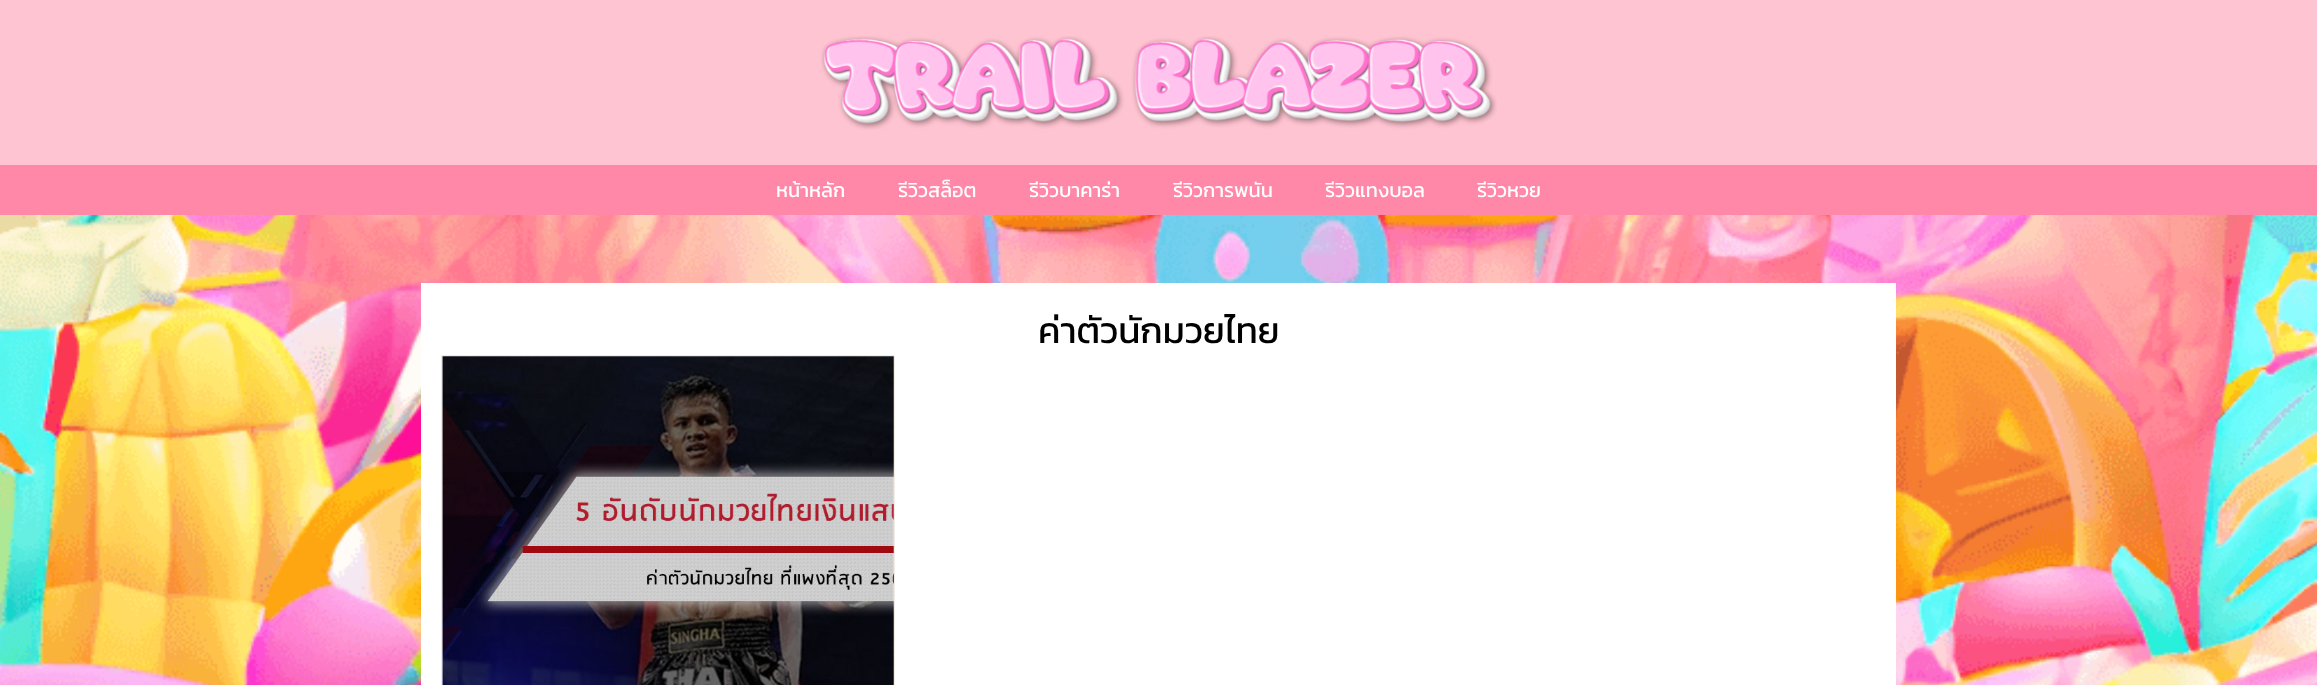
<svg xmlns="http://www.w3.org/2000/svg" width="2317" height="685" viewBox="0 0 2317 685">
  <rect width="100%" height="100%" fill="rgb(255,196,209)"/>
  <image x="821" y="36" width="676" height="94" href="pic1.png"/>
  <rect x="0" y="165" width="2317" height="50" fill="rgb(255,136,168)"/>
  <g font-family="Kanit" font-size="20" fill="rgb(255,255,255)">
    <text x="776" y="197">หน้าหลัก</text>
    <text x="898" y="197">รีวิวสล็อต</text>
    <text x="1029" y="197">รีวิวบาคาร่า</text>
    <text x="1173" y="197">รีวิวการพนัน</text>
    <text x="1325" y="197">รีวิวแทงบอล</text>
    <text x="1477" y="197">รีวิวหวย</text>
  </g>
  <image x="0" y="215" width="2317" height="470" href="pic2.png"/>
  <rect x="421" y="283" width="1475" height="402" fill="rgb(255,255,255)"/>
  <text x="1038" y="343" font-family="Kanit" font-size="36.5" fill="rgb(0,0,0)">ค่าตัวนักมวยไทย</text>
  <rect x="441.5" y="355.5" width="453" height="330" fill="none" stroke="rgb(241,236,230)"/>
  <image x="442" y="356" width="452" height="329" href="pic3.png"/>
</svg>
